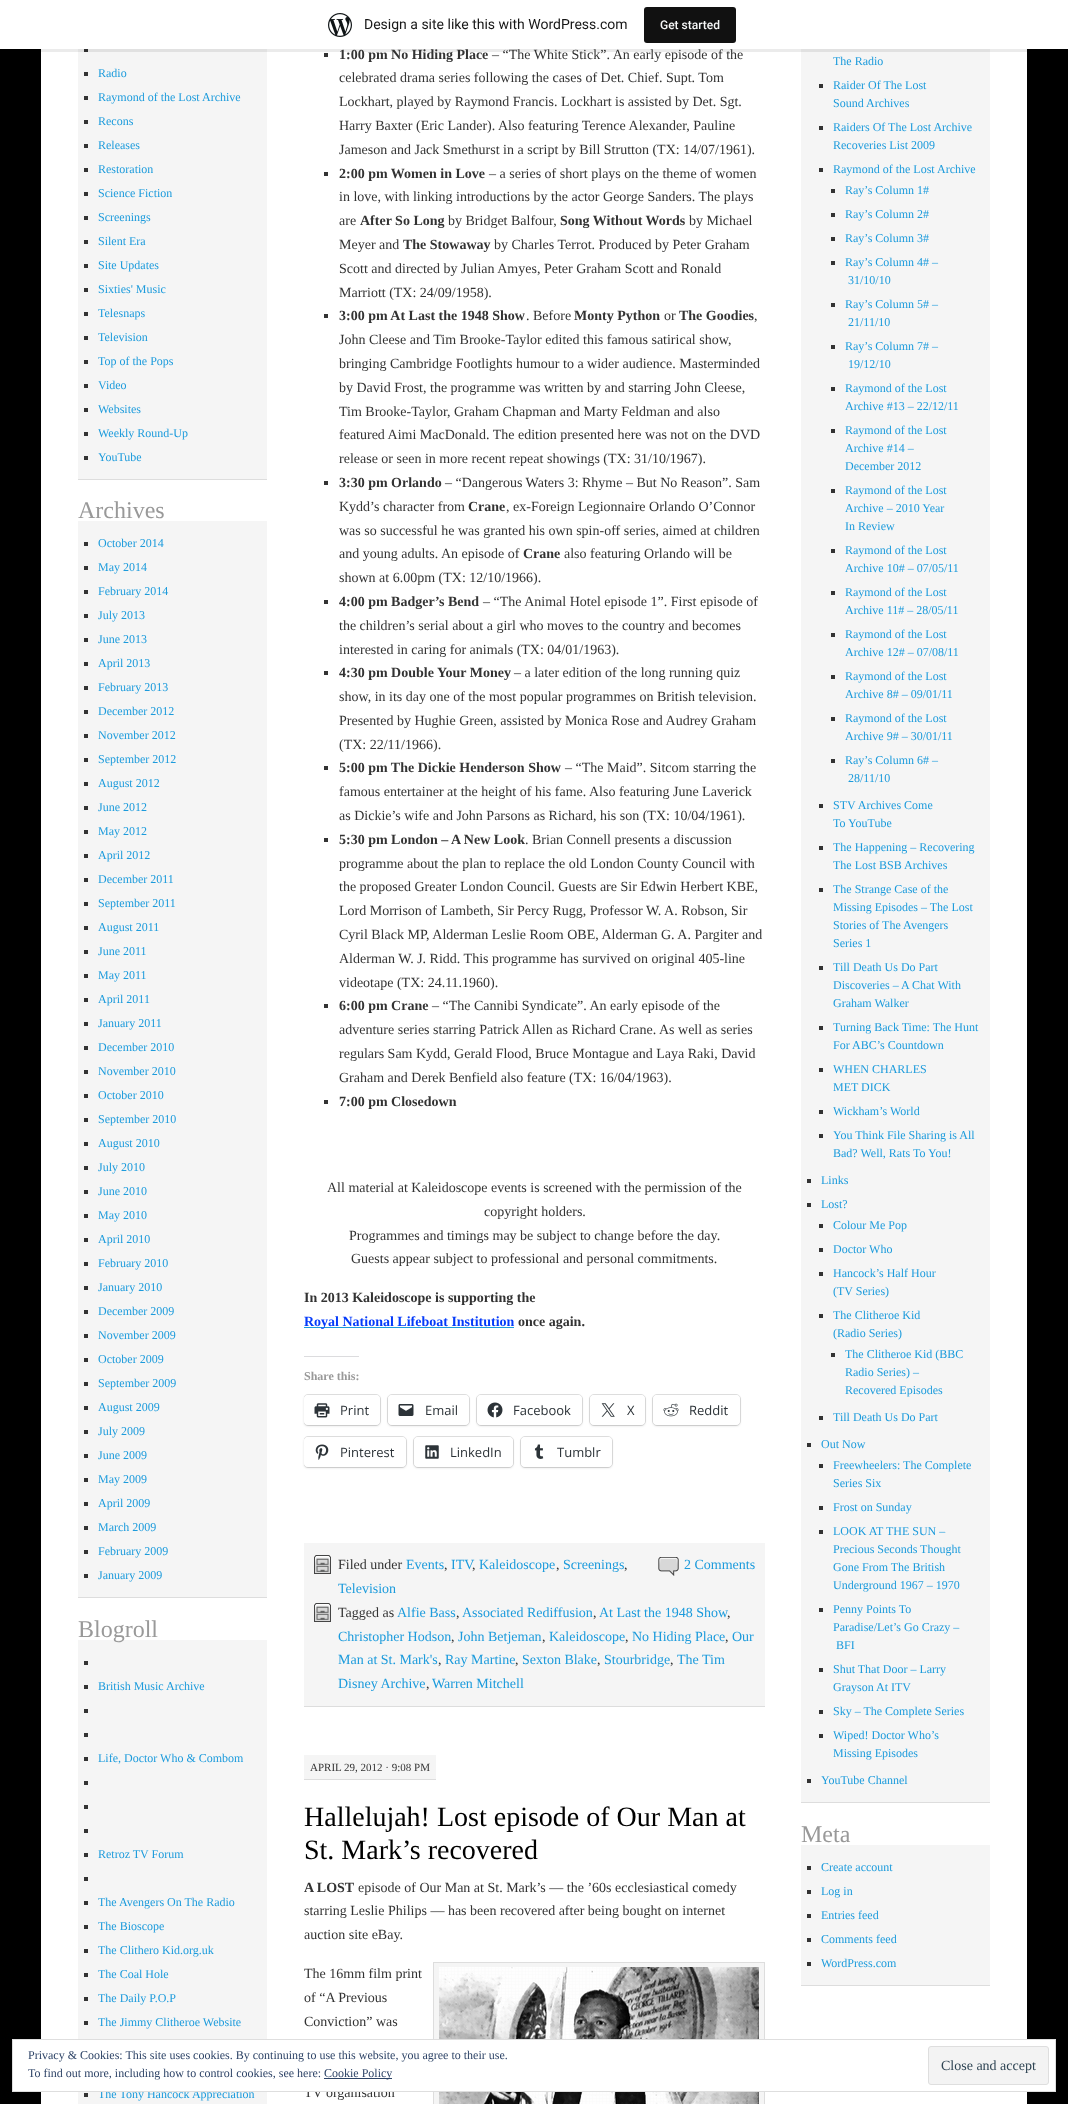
<svg xmlns="http://www.w3.org/2000/svg" width="1068" height="2104" viewBox="0 0 1068 2104">
  <defs>
    <clipPath id="clip1"><rect x="304" y="0" width="461" height="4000"/></clipPath>
  </defs>
  <rect width="100%" height="100%" fill="rgb(0,0,0)"/>
  <rect x="41" y="49" width="986" height="2055" fill="rgb(255,255,255)"/>
  <rect x="78" y="49" width="189" height="430" fill="rgb(245,245,245)"/>
  <rect x="84" y="49" width="4" height="3" fill="rgb(51,51,51)"/>
  <rect x="801" y="49" width="189" height="1753" fill="rgb(245,245,245)"/>
  <path d="M1 49V52H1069V3H1068V49Z" fill="rgba(0,0,0,0.08)"/>
  <rect x="0" y="0" width="1068" height="49" fill="rgb(255,255,255)"/>
  <image x="328" y="13" width="24" height="24" href="pic1.png"/>
  <text x="364" y="29" font-family="Roboto" font-size="14" fill="rgb(23,23,23)">Design a site like this with WordPress.com</text>
  <rect x="644" y="7" width="92" height="36" rx="3" fill="rgb(17,17,17)"/>
  <text x="660" y="29" font-family="Roboto" font-size="12" font-weight="500" fill="rgb(246,247,247)">Get started</text>
  <rect x="78" y="479" width="189" height="1" fill="rgb(221,221,221)"/>
  <rect x="84" y="72" width="4" height="4" fill="rgb(51,51,51)"/>
  <text x="98" y="77" font-family="Liberation Serif" font-size="12" fill="rgb(28,155,220)">Radio</text>
  <rect x="84" y="96" width="4" height="4" fill="rgb(51,51,51)"/>
  <text x="98" y="101" font-family="Liberation Serif" font-size="12" fill="rgb(28,155,220)">Raymond of the Lost Archive</text>
  <rect x="84" y="120" width="4" height="4" fill="rgb(51,51,51)"/>
  <text x="98" y="125" font-family="Liberation Serif" font-size="12" fill="rgb(28,155,220)">Recons</text>
  <rect x="84" y="144" width="4" height="4" fill="rgb(51,51,51)"/>
  <text x="98" y="149" font-family="Liberation Serif" font-size="12" fill="rgb(28,155,220)">Releases</text>
  <rect x="84" y="168" width="4" height="4" fill="rgb(51,51,51)"/>
  <text x="98" y="173" font-family="Liberation Serif" font-size="12" fill="rgb(28,155,220)">Restoration</text>
  <rect x="84" y="192" width="4" height="4" fill="rgb(51,51,51)"/>
  <text x="98" y="197" font-family="Liberation Serif" font-size="12" fill="rgb(28,155,220)">Science Fiction</text>
  <rect x="84" y="216" width="4" height="4" fill="rgb(51,51,51)"/>
  <text x="98" y="221" font-family="Liberation Serif" font-size="12" fill="rgb(28,155,220)">Screenings</text>
  <rect x="84" y="240" width="4" height="4" fill="rgb(51,51,51)"/>
  <text x="98" y="245" font-family="Liberation Serif" font-size="12" fill="rgb(28,155,220)">Silent Era</text>
  <rect x="84" y="264" width="4" height="4" fill="rgb(51,51,51)"/>
  <text x="98" y="269" font-family="Liberation Serif" font-size="12" fill="rgb(28,155,220)">Site Updates</text>
  <rect x="84" y="288" width="4" height="4" fill="rgb(51,51,51)"/>
  <text x="98" y="293" font-family="Liberation Serif" font-size="12" fill="rgb(28,155,220)">Sixties' Music</text>
  <rect x="84" y="312" width="4" height="4" fill="rgb(51,51,51)"/>
  <text x="98" y="317" font-family="Liberation Serif" font-size="12" fill="rgb(28,155,220)">Telesnaps</text>
  <rect x="84" y="336" width="4" height="4" fill="rgb(51,51,51)"/>
  <text x="98" y="341" font-family="Liberation Serif" font-size="12" fill="rgb(28,155,220)">Television</text>
  <rect x="84" y="360" width="4" height="4" fill="rgb(51,51,51)"/>
  <text x="98" y="365" font-family="Liberation Serif" font-size="12" fill="rgb(28,155,220)">Top of the Pops</text>
  <rect x="84" y="384" width="4" height="4" fill="rgb(51,51,51)"/>
  <text x="98" y="389" font-family="Liberation Serif" font-size="12" fill="rgb(28,155,220)">Video</text>
  <rect x="84" y="408" width="4" height="4" fill="rgb(51,51,51)"/>
  <text x="98" y="413" font-family="Liberation Serif" font-size="12" fill="rgb(28,155,220)">Websites</text>
  <rect x="84" y="432" width="4" height="4" fill="rgb(51,51,51)"/>
  <text x="98" y="437" font-family="Liberation Serif" font-size="12" fill="rgb(28,155,220)">Weekly Round-Up</text>
  <rect x="84" y="456" width="4" height="4" fill="rgb(51,51,51)"/>
  <text x="98" y="461" font-family="Liberation Serif" font-size="12" fill="rgb(28,155,220)">YouTube</text>
  <text x="78" y="518" font-family="Liberation Serif" font-size="24" fill="rgb(153,153,153)">Archives</text>
  <rect x="78" y="521" width="189" height="1076" fill="rgb(245,245,245)"/>
  <rect x="78" y="1597" width="189" height="1" fill="rgb(221,221,221)"/>
  <rect x="84" y="542" width="4" height="4" fill="rgb(51,51,51)"/>
  <text x="98" y="547" font-family="Liberation Serif" font-size="12" fill="rgb(28,155,220)">October 2014</text>
  <rect x="84" y="566" width="4" height="4" fill="rgb(51,51,51)"/>
  <text x="98" y="571" font-family="Liberation Serif" font-size="12" fill="rgb(28,155,220)">May 2014</text>
  <rect x="84" y="590" width="4" height="4" fill="rgb(51,51,51)"/>
  <text x="98" y="595" font-family="Liberation Serif" font-size="12" fill="rgb(28,155,220)">February 2014</text>
  <rect x="84" y="614" width="4" height="4" fill="rgb(51,51,51)"/>
  <text x="98" y="619" font-family="Liberation Serif" font-size="12" fill="rgb(28,155,220)">July 2013</text>
  <rect x="84" y="638" width="4" height="4" fill="rgb(51,51,51)"/>
  <text x="98" y="643" font-family="Liberation Serif" font-size="12" fill="rgb(28,155,220)">June 2013</text>
  <rect x="84" y="662" width="4" height="4" fill="rgb(51,51,51)"/>
  <text x="98" y="667" font-family="Liberation Serif" font-size="12" fill="rgb(28,155,220)">April 2013</text>
  <rect x="84" y="686" width="4" height="4" fill="rgb(51,51,51)"/>
  <text x="98" y="691" font-family="Liberation Serif" font-size="12" fill="rgb(28,155,220)">February 2013</text>
  <rect x="84" y="710" width="4" height="4" fill="rgb(51,51,51)"/>
  <text x="98" y="715" font-family="Liberation Serif" font-size="12" fill="rgb(28,155,220)">December 2012</text>
  <rect x="84" y="734" width="4" height="4" fill="rgb(51,51,51)"/>
  <text x="98" y="739" font-family="Liberation Serif" font-size="12" fill="rgb(28,155,220)">November 2012</text>
  <rect x="84" y="758" width="4" height="4" fill="rgb(51,51,51)"/>
  <text x="98" y="763" font-family="Liberation Serif" font-size="12" fill="rgb(28,155,220)">September 2012</text>
  <rect x="84" y="782" width="4" height="4" fill="rgb(51,51,51)"/>
  <text x="98" y="787" font-family="Liberation Serif" font-size="12" fill="rgb(28,155,220)">August 2012</text>
  <rect x="84" y="806" width="4" height="4" fill="rgb(51,51,51)"/>
  <text x="98" y="811" font-family="Liberation Serif" font-size="12" fill="rgb(28,155,220)">June 2012</text>
  <rect x="84" y="830" width="4" height="4" fill="rgb(51,51,51)"/>
  <text x="98" y="835" font-family="Liberation Serif" font-size="12" fill="rgb(28,155,220)">May 2012</text>
  <rect x="84" y="854" width="4" height="4" fill="rgb(51,51,51)"/>
  <text x="98" y="859" font-family="Liberation Serif" font-size="12" fill="rgb(28,155,220)">April 2012</text>
  <rect x="84" y="878" width="4" height="4" fill="rgb(51,51,51)"/>
  <text x="98" y="883" font-family="Liberation Serif" font-size="12" fill="rgb(28,155,220)">December 2011</text>
  <rect x="84" y="902" width="4" height="4" fill="rgb(51,51,51)"/>
  <text x="98" y="907" font-family="Liberation Serif" font-size="12" fill="rgb(28,155,220)">September 2011</text>
  <rect x="84" y="926" width="4" height="4" fill="rgb(51,51,51)"/>
  <text x="98" y="931" font-family="Liberation Serif" font-size="12" fill="rgb(28,155,220)">August 2011</text>
  <rect x="84" y="950" width="4" height="4" fill="rgb(51,51,51)"/>
  <text x="98" y="955" font-family="Liberation Serif" font-size="12" fill="rgb(28,155,220)">June 2011</text>
  <rect x="84" y="974" width="4" height="4" fill="rgb(51,51,51)"/>
  <text x="98" y="979" font-family="Liberation Serif" font-size="12" fill="rgb(28,155,220)">May 2011</text>
  <rect x="84" y="998" width="4" height="4" fill="rgb(51,51,51)"/>
  <text x="98" y="1003" font-family="Liberation Serif" font-size="12" fill="rgb(28,155,220)">April 2011</text>
  <rect x="84" y="1022" width="4" height="4" fill="rgb(51,51,51)"/>
  <text x="98" y="1027" font-family="Liberation Serif" font-size="12" fill="rgb(28,155,220)">January 2011</text>
  <rect x="84" y="1046" width="4" height="4" fill="rgb(51,51,51)"/>
  <text x="98" y="1051" font-family="Liberation Serif" font-size="12" fill="rgb(28,155,220)">December 2010</text>
  <rect x="84" y="1070" width="4" height="4" fill="rgb(51,51,51)"/>
  <text x="98" y="1075" font-family="Liberation Serif" font-size="12" fill="rgb(28,155,220)">November 2010</text>
  <rect x="84" y="1094" width="4" height="4" fill="rgb(51,51,51)"/>
  <text x="98" y="1099" font-family="Liberation Serif" font-size="12" fill="rgb(28,155,220)">October 2010</text>
  <rect x="84" y="1118" width="4" height="4" fill="rgb(51,51,51)"/>
  <text x="98" y="1123" font-family="Liberation Serif" font-size="12" fill="rgb(28,155,220)">September 2010</text>
  <rect x="84" y="1142" width="4" height="4" fill="rgb(51,51,51)"/>
  <text x="98" y="1147" font-family="Liberation Serif" font-size="12" fill="rgb(28,155,220)">August 2010</text>
  <rect x="84" y="1166" width="4" height="4" fill="rgb(51,51,51)"/>
  <text x="98" y="1171" font-family="Liberation Serif" font-size="12" fill="rgb(28,155,220)">July 2010</text>
  <rect x="84" y="1190" width="4" height="4" fill="rgb(51,51,51)"/>
  <text x="98" y="1195" font-family="Liberation Serif" font-size="12" fill="rgb(28,155,220)">June 2010</text>
  <rect x="84" y="1214" width="4" height="4" fill="rgb(51,51,51)"/>
  <text x="98" y="1219" font-family="Liberation Serif" font-size="12" fill="rgb(28,155,220)">May 2010</text>
  <rect x="84" y="1238" width="4" height="4" fill="rgb(51,51,51)"/>
  <text x="98" y="1243" font-family="Liberation Serif" font-size="12" fill="rgb(28,155,220)">April 2010</text>
  <rect x="84" y="1262" width="4" height="4" fill="rgb(51,51,51)"/>
  <text x="98" y="1267" font-family="Liberation Serif" font-size="12" fill="rgb(28,155,220)">February 2010</text>
  <rect x="84" y="1286" width="4" height="4" fill="rgb(51,51,51)"/>
  <text x="98" y="1291" font-family="Liberation Serif" font-size="12" fill="rgb(28,155,220)">January 2010</text>
  <rect x="84" y="1310" width="4" height="4" fill="rgb(51,51,51)"/>
  <text x="98" y="1315" font-family="Liberation Serif" font-size="12" fill="rgb(28,155,220)">December 2009</text>
  <rect x="84" y="1334" width="4" height="4" fill="rgb(51,51,51)"/>
  <text x="98" y="1339" font-family="Liberation Serif" font-size="12" fill="rgb(28,155,220)">November 2009</text>
  <rect x="84" y="1358" width="4" height="4" fill="rgb(51,51,51)"/>
  <text x="98" y="1363" font-family="Liberation Serif" font-size="12" fill="rgb(28,155,220)">October 2009</text>
  <rect x="84" y="1382" width="4" height="4" fill="rgb(51,51,51)"/>
  <text x="98" y="1387" font-family="Liberation Serif" font-size="12" fill="rgb(28,155,220)">September 2009</text>
  <rect x="84" y="1406" width="4" height="4" fill="rgb(51,51,51)"/>
  <text x="98" y="1411" font-family="Liberation Serif" font-size="12" fill="rgb(28,155,220)">August 2009</text>
  <rect x="84" y="1430" width="4" height="4" fill="rgb(51,51,51)"/>
  <text x="98" y="1435" font-family="Liberation Serif" font-size="12" fill="rgb(28,155,220)">July 2009</text>
  <rect x="84" y="1454" width="4" height="4" fill="rgb(51,51,51)"/>
  <text x="98" y="1459" font-family="Liberation Serif" font-size="12" fill="rgb(28,155,220)">June 2009</text>
  <rect x="84" y="1478" width="4" height="4" fill="rgb(51,51,51)"/>
  <text x="98" y="1483" font-family="Liberation Serif" font-size="12" fill="rgb(28,155,220)">May 2009</text>
  <rect x="84" y="1502" width="4" height="4" fill="rgb(51,51,51)"/>
  <text x="98" y="1507" font-family="Liberation Serif" font-size="12" fill="rgb(28,155,220)">April 2009</text>
  <rect x="84" y="1526" width="4" height="4" fill="rgb(51,51,51)"/>
  <text x="98" y="1531" font-family="Liberation Serif" font-size="12" fill="rgb(28,155,220)">March 2009</text>
  <rect x="84" y="1550" width="4" height="4" fill="rgb(51,51,51)"/>
  <text x="98" y="1555" font-family="Liberation Serif" font-size="12" fill="rgb(28,155,220)">February 2009</text>
  <rect x="84" y="1574" width="4" height="4" fill="rgb(51,51,51)"/>
  <text x="98" y="1579" font-family="Liberation Serif" font-size="12" fill="rgb(28,155,220)">January 2009</text>
  <rect x="78" y="1640" width="189" height="464" fill="rgb(245,245,245)"/>
  <text x="78" y="1637" font-family="Liberation Serif" font-size="24" fill="rgb(153,153,153)">Blogroll</text>
  <rect x="84" y="1661" width="4" height="4" fill="rgb(51,51,51)"/>
  <rect x="84" y="1685" width="4" height="4" fill="rgb(51,51,51)"/>
  <text x="98" y="1690" font-family="Liberation Serif" font-size="12" fill="rgb(28,155,220)">British Music Archive</text>
  <rect x="84" y="1709" width="4" height="4" fill="rgb(51,51,51)"/>
  <rect x="84" y="1733" width="4" height="4" fill="rgb(51,51,51)"/>
  <rect x="84" y="1757" width="4" height="4" fill="rgb(51,51,51)"/>
  <text x="98" y="1762" font-family="Liberation Serif" font-size="12" fill="rgb(28,155,220)">Life, Doctor Who &amp; Combom</text>
  <rect x="84" y="1781" width="4" height="4" fill="rgb(51,51,51)"/>
  <rect x="84" y="1805" width="4" height="4" fill="rgb(51,51,51)"/>
  <rect x="84" y="1829" width="4" height="4" fill="rgb(51,51,51)"/>
  <rect x="84" y="1853" width="4" height="4" fill="rgb(51,51,51)"/>
  <text x="98" y="1858" font-family="Liberation Serif" font-size="12" fill="rgb(28,155,220)">Retroz TV Forum</text>
  <rect x="84" y="1877" width="4" height="4" fill="rgb(51,51,51)"/>
  <rect x="84" y="1901" width="4" height="4" fill="rgb(51,51,51)"/>
  <text x="98" y="1906" font-family="Liberation Serif" font-size="12" fill="rgb(28,155,220)">The Avengers On The Radio</text>
  <rect x="84" y="1925" width="4" height="4" fill="rgb(51,51,51)"/>
  <text x="98" y="1930" font-family="Liberation Serif" font-size="12" fill="rgb(28,155,220)">The Bioscope</text>
  <rect x="84" y="1949" width="4" height="4" fill="rgb(51,51,51)"/>
  <text x="98" y="1954" font-family="Liberation Serif" font-size="12" fill="rgb(28,155,220)">The Clithero Kid.org.uk</text>
  <rect x="84" y="1973" width="4" height="4" fill="rgb(51,51,51)"/>
  <text x="98" y="1978" font-family="Liberation Serif" font-size="12" fill="rgb(28,155,220)">The Coal Hole</text>
  <rect x="84" y="1997" width="4" height="4" fill="rgb(51,51,51)"/>
  <text x="98" y="2002" font-family="Liberation Serif" font-size="12" fill="rgb(28,155,220)">The Daily P.O.P</text>
  <rect x="84" y="2021" width="4" height="4" fill="rgb(51,51,51)"/>
  <text x="98" y="2026" font-family="Liberation Serif" font-size="12" fill="rgb(28,155,220)">The Jimmy Clitheroe Website</text>
  <rect x="84" y="2093" width="4" height="4" fill="rgb(51,51,51)"/>
  <text x="98" y="2098" font-family="Liberation Serif" font-size="12" fill="rgb(28,155,220)">The Tony Hancock Appreciation</text>
  <rect x="324" y="53" width="4" height="4" fill="rgb(51,51,51)"/>
  <text x="339" y="59" font-family="Liberation Serif" font-size="14" font-weight="bold" fill="rgb(51,51,51)">1:00 pm No Hiding Place</text>
  <g font-family="Liberation Serif" font-size="14" fill="rgb(51,51,51)">
    <text x="492" y="59">– “The White Stick”. An early episode of the</text>
    <text>
      <tspan x="339" y="82">celebrated drama series following the cases of Det. Chief. Supt. Tom</tspan>
      <tspan x="339" y="106">Lockhart, played by Raymond Francis. Lockhart is assisted by Det. Sgt.</tspan>
      <tspan x="339" y="130">Harry Baxter (Eric Lander). Also featuring Terence Alexander, Pauline</tspan>
      <tspan x="339" y="154">Jameson and Jack Smethurst in a script by Bill Strutton (TX: 14/07/1961).</tspan>
    </text>
  </g>
  <rect x="324" y="172" width="4" height="4" fill="rgb(51,51,51)"/>
  <text x="339" y="178" font-family="Liberation Serif" font-size="14" font-weight="bold" fill="rgb(51,51,51)">2:00 pm Women in Love</text>
  <g font-family="Liberation Serif" font-size="14" fill="rgb(51,51,51)">
    <text x="489" y="178">– a series of short plays on the theme of women</text>
    <text>
      <tspan x="339" y="201">in love, with linking introductions by the actor George Sanders. The plays</tspan>
      <tspan x="339" y="225">are</tspan>
    </text>
  </g>
  <text x="360" y="225" font-family="Liberation Serif" font-size="14" font-weight="bold" fill="rgb(51,51,51)">After So Long</text>
  <text x="448" y="225" font-family="Liberation Serif" font-size="14" fill="rgb(51,51,51)">by Bridget Balfour,</text>
  <text x="560" y="225" font-family="Liberation Serif" font-size="14" font-weight="bold" fill="rgb(51,51,51)">Song Without Words</text>
  <g font-family="Liberation Serif" font-size="14" fill="rgb(51,51,51)">
    <text x="689" y="225">by Michael</text>
    <text x="339" y="249">Meyer and</text>
  </g>
  <text x="403" y="249" font-family="Liberation Serif" font-size="14" font-weight="bold" fill="rgb(51,51,51)">The Stowaway</text>
  <g font-family="Liberation Serif" font-size="14" fill="rgb(51,51,51)">
    <text x="494" y="249">by Charles Terrot. Produced by Peter Graham</text>
    <text>
      <tspan x="339" y="273">Scott and directed by Julian Amyes, Peter Graham Scott and Ronald</tspan>
      <tspan x="339" y="297">Marriott (TX: 24/09/1958).</tspan>
    </text>
  </g>
  <rect x="324" y="314" width="4" height="4" fill="rgb(51,51,51)"/>
  <text x="339" y="320" font-family="Liberation Serif" font-size="14" font-weight="bold" fill="rgb(51,51,51)">3:00 pm At Last the 1948 Show</text>
  <text x="526" y="320" font-family="Liberation Serif" font-size="14" fill="rgb(51,51,51)">. Before</text>
  <text x="574" y="320" font-family="Liberation Serif" font-size="14" font-weight="bold" fill="rgb(51,51,51)">Monty Python</text>
  <text x="664" y="320" font-family="Liberation Serif" font-size="14" fill="rgb(51,51,51)">or</text>
  <text x="679" y="320" font-family="Liberation Serif" font-size="14" font-weight="bold" fill="rgb(51,51,51)">The Goodies</text>
  <g font-family="Liberation Serif" font-size="14" fill="rgb(51,51,51)">
    <text x="754" y="320">,</text>
    <text>
      <tspan x="339" y="344">John Cleese and Tim Brooke-Taylor edited this famous satirical show,</tspan>
      <tspan x="339" y="368">bringing Cambridge Footlights humour to a wider audience. Masterminded</tspan>
      <tspan x="339" y="392">by David Frost, the programme was written by and starring John Cleese,</tspan>
      <tspan x="339" y="416">Tim Brooke-Taylor, Graham Chapman and Marty Feldman and also</tspan>
      <tspan x="339" y="439">featured Aimi MacDonald. The edition presented here was not on the DVD</tspan>
      <tspan x="339" y="463">release or seen in more recent repeat showings (TX: 31/10/1967).</tspan>
    </text>
  </g>
  <rect x="324" y="481" width="4" height="4" fill="rgb(51,51,51)"/>
  <text x="339" y="487" font-family="Liberation Serif" font-size="14" font-weight="bold" fill="rgb(51,51,51)">3:30 pm Orlando</text>
  <g font-family="Liberation Serif" font-size="14" fill="rgb(51,51,51)">
    <text x="445" y="487">– “Dangerous Waters 3: Rhyme – But No Reason”. Sam</text>
    <text x="339" y="511">Kydd’s character from</text>
  </g>
  <text x="468" y="511" font-family="Liberation Serif" font-size="14" font-weight="bold" fill="rgb(51,51,51)">Crane</text>
  <g font-family="Liberation Serif" font-size="14" fill="rgb(51,51,51)">
    <text x="506" y="511">, ex-Foreign Legionnaire Orlando O’Connor</text>
    <text>
      <tspan x="339" y="535">was so successful he was granted his own spin-off series, aimed at children</tspan>
      <tspan x="339" y="558">and young adults. An episode of</tspan>
    </text>
  </g>
  <text x="523" y="558" font-family="Liberation Serif" font-size="14" font-weight="bold" fill="rgb(51,51,51)">Crane</text>
  <g font-family="Liberation Serif" font-size="14" fill="rgb(51,51,51)">
    <text x="564" y="558">also featuring Orlando will be</text>
    <text x="339" y="582">shown at 6.00pm (TX: 12/10/1966).</text>
  </g>
  <rect x="324" y="600" width="4" height="4" fill="rgb(51,51,51)"/>
  <text x="339" y="606" font-family="Liberation Serif" font-size="14" font-weight="bold" fill="rgb(51,51,51)">4:00 pm Badger’s Bend</text>
  <g font-family="Liberation Serif" font-size="14" fill="rgb(51,51,51)">
    <text x="483" y="606">– “The Animal Hotel episode 1”. First episode of</text>
    <text>
      <tspan x="339" y="630">the children’s serial about a girl who moves to the country and becomes</tspan>
      <tspan x="339" y="654">interested in caring for animals (TX: 04/01/1963).</tspan>
    </text>
  </g>
  <rect x="324" y="671" width="4" height="4" fill="rgb(51,51,51)"/>
  <text x="339" y="677" font-family="Liberation Serif" font-size="14" font-weight="bold" fill="rgb(51,51,51)">4:30 pm Double Your Money</text>
  <g font-family="Liberation Serif" font-size="14" fill="rgb(51,51,51)">
    <text x="514" y="677">– a later edition of the long running quiz</text>
    <text>
      <tspan x="339" y="701">show, in its day one of the most popular programmes on British television.</tspan>
      <tspan x="339" y="725">Presented by Hughie Green, assisted by Monica Rose and Audrey Graham</tspan>
      <tspan x="339" y="749">(TX: 22/11/1966).</tspan>
    </text>
  </g>
  <rect x="324" y="766" width="4" height="4" fill="rgb(51,51,51)"/>
  <text x="339" y="772" font-family="Liberation Serif" font-size="14" font-weight="bold" fill="rgb(51,51,51)">5:00 pm The Dickie Henderson Show</text>
  <g font-family="Liberation Serif" font-size="14" fill="rgb(51,51,51)">
    <text x="565" y="772">– “The Maid”. Sitcom starring the</text>
    <text>
      <tspan x="339" y="796">famous entertainer at the height of his fame. Also featuring June Laverick</tspan>
      <tspan x="339" y="820">as Dickie’s wife and John Parsons as Richard, his son (TX: 10/04/1961).</tspan>
    </text>
  </g>
  <rect x="324" y="838" width="4" height="4" fill="rgb(51,51,51)"/>
  <text x="339" y="844" font-family="Liberation Serif" font-size="14" font-weight="bold" fill="rgb(51,51,51)">5:30 pm London – A New Look</text>
  <g font-family="Liberation Serif" font-size="14" fill="rgb(51,51,51)">
    <text x="525" y="844">. Brian Connell presents a discussion</text>
    <text>
      <tspan x="339" y="868">programme about the plan to replace the old London County Council with</tspan>
      <tspan x="339" y="891">the proposed Greater London Council. Guests are Sir Edwin Herbert KBE,</tspan>
      <tspan x="339" y="915">Lord Morrison of Lambeth, Sir Percy Rugg, Professor W. A. Robson, Sir</tspan>
      <tspan x="339" y="939">Cyril Black MP, Alderman Leslie Room OBE, Alderman G. A. Pargiter and</tspan>
      <tspan x="339" y="963">Alderman W. J. Ridd. This programme has survived on original 405-line</tspan>
      <tspan x="339" y="987">videotape (TX: 24.11.1960).</tspan>
    </text>
  </g>
  <rect x="324" y="1004" width="4" height="4" fill="rgb(51,51,51)"/>
  <text x="339" y="1010" font-family="Liberation Serif" font-size="14" font-weight="bold" fill="rgb(51,51,51)">6:00 pm Crane</text>
  <g font-family="Liberation Serif" font-size="14" fill="rgb(51,51,51)">
    <text x="432" y="1010">– “The Cannibi Syndicate”. An early episode of the</text>
    <text>
      <tspan x="339" y="1034">adventure series starring Patrick Allen as Richard Crane. As well as series</tspan>
      <tspan x="339" y="1058">regulars Sam Kydd, Gerald Flood, Bruce Montague and Laya Raki, David</tspan>
      <tspan x="339" y="1082">Graham and Derek Benfield also feature (TX: 16/04/1963).</tspan>
    </text>
  </g>
  <rect x="324" y="1100" width="4" height="4" fill="rgb(51,51,51)"/>
  <text x="339" y="1106" font-family="Liberation Serif" font-size="14" font-weight="bold" fill="rgb(51,51,51)">7:00 pm Closedown</text>
  <g font-family="Liberation Serif" font-size="14" fill="rgb(51,51,51)">
    <text x="327" y="1192">All material at Kaleidoscope events is screened with the permission of the</text>
    <text x="484" y="1216">copyright holders.</text>
    <text x="349" y="1240">Programmes and timings may be subject to change before the day.</text>
    <text x="351" y="1263">Guests appear subject to professional and personal commitments.</text>
  </g>
  <text x="304" y="1302" font-family="Liberation Serif" font-size="14" font-weight="bold" fill="rgb(51,51,51)">In 2013 Kaleidoscope is supporting the</text>
  <rect x="304" y="1327" width="210" height="1" fill="rgb(28,155,220)"/>
  <text x="304" y="1326" font-family="Liberation Serif" font-size="14" font-weight="bold" fill="rgb(4,58,250)">Royal National Lifeboat Institution</text>
  <text x="518" y="1326" font-family="Liberation Serif" font-size="14" font-weight="bold" fill="rgb(51,51,51)">once again.</text>
  <rect x="304" y="1356" width="55" height="1" fill="rgb(220,220,222)"/>
  <text x="304" y="1380" font-family="Liberation Serif" font-size="12" font-weight="bold" fill="rgb(153,153,153)">Share this:</text>
  <g clip-path="url(#clip1)">
    <rect x="303.5" y="1394.5" width="77" height="31" rx="4.5" fill="none" stroke="rgb(224,224,224)"/>
  </g>
  <rect x="304" y="1396" width="76" height="30" rx="4" fill="rgba(0,0,0,0.12)" filter="blur(1px)"/>
  <rect x="304" y="1395" width="76" height="30" rx="4" fill="rgb(255,255,255)"/>
  <image x="314" y="1403" width="16" height="15" href="pic2.png"/>
  <text x="340" y="1415" font-family="Open Sans" font-size="13" fill="rgb(44,51,56)">Print</text>
  <rect x="387.5" y="1394.5" width="82" height="31" rx="4.5" fill="none" stroke="rgb(224,224,224)"/>
  <rect x="388" y="1396" width="81" height="30" rx="4" fill="rgba(0,0,0,0.12)" filter="blur(1px)"/>
  <rect x="388" y="1395" width="81" height="30" rx="4" fill="rgb(255,255,255)"/>
  <image x="398" y="1404" width="16" height="12" href="pic3.png"/>
  <text x="425" y="1415" font-family="Open Sans" font-size="13" fill="rgb(44,51,56)">Email</text>
  <rect x="476.5" y="1394.5" width="106" height="31" rx="4.5" fill="none" stroke="rgb(224,224,224)"/>
  <rect x="477" y="1396" width="105" height="30" rx="4" fill="rgba(0,0,0,0.12)" filter="blur(1px)"/>
  <rect x="477" y="1395" width="105" height="30" rx="4" fill="rgb(255,255,255)"/>
  <image x="487" y="1402" width="16" height="16" href="pic4.png"/>
  <text x="513" y="1415" font-family="Open Sans" font-size="13" fill="rgb(44,51,56)">Facebook</text>
  <rect x="589.5" y="1394.5" width="56" height="31" rx="4.5" fill="none" stroke="rgb(224,224,224)"/>
  <rect x="590" y="1396" width="55" height="30" rx="4" fill="rgba(0,0,0,0.12)" filter="blur(1px)"/>
  <rect x="590" y="1395" width="55" height="30" rx="4" fill="rgb(255,255,255)"/>
  <image x="601" y="1403" width="14" height="14" href="pic5.png"/>
  <text x="627" y="1415" font-family="Open Sans" font-size="13" fill="rgb(44,51,56)">X</text>
  <rect x="652.5" y="1394.5" width="88" height="31" rx="4.5" fill="none" stroke="rgb(224,224,224)"/>
  <rect x="653" y="1396" width="87" height="30" rx="4" fill="rgba(0,0,0,0.12)" filter="blur(1px)"/>
  <rect x="653" y="1395" width="87" height="30" rx="4" fill="rgb(255,255,255)"/>
  <image x="663" y="1403" width="16" height="14" href="pic6.png"/>
  <text x="689" y="1415" font-family="Open Sans" font-size="13" fill="rgb(44,51,56)">Reddit</text>
  <g clip-path="url(#clip1)">
    <rect x="303.5" y="1436.5" width="103" height="31" rx="4.5" fill="none" stroke="rgb(224,224,224)"/>
  </g>
  <rect x="304" y="1438" width="102" height="30" rx="4" fill="rgba(0,0,0,0.12)" filter="blur(1px)"/>
  <rect x="304" y="1437" width="102" height="30" rx="4" fill="rgb(255,255,255)"/>
  <image x="315" y="1444" width="14" height="16" href="pic7.png"/>
  <text x="340" y="1457" font-family="Open Sans" font-size="13" fill="rgb(44,51,56)">Pinterest</text>
  <rect x="413.5" y="1436.5" width="100" height="31" rx="4.5" fill="none" stroke="rgb(224,224,224)"/>
  <rect x="414" y="1438" width="99" height="30" rx="4" fill="rgba(0,0,0,0.12)" filter="blur(1px)"/>
  <rect x="414" y="1437" width="99" height="30" rx="4" fill="rgb(255,255,255)"/>
  <image x="425" y="1445" width="14" height="14" href="pic8.png"/>
  <text x="450" y="1457" font-family="Open Sans" font-size="13" fill="rgb(44,51,56)">LinkedIn</text>
  <rect x="520.5" y="1436.5" width="92" height="31" rx="4.5" fill="none" stroke="rgb(224,224,224)"/>
  <rect x="521" y="1438" width="91" height="30" rx="4" fill="rgba(0,0,0,0.12)" filter="blur(1px)"/>
  <rect x="521" y="1437" width="91" height="30" rx="4" fill="rgb(255,255,255)"/>
  <image x="534" y="1444" width="10" height="15" href="pic9.png"/>
  <text x="557" y="1457" font-family="Open Sans" font-size="13" fill="rgb(44,51,56)">Tumblr</text>
  <rect x="304" y="1543" width="461" height="163" fill="rgb(245,245,245)"/>
  <rect x="304" y="1706" width="461" height="1" fill="rgb(221,221,221)"/>
  <image x="314" y="1555" width="17" height="19" href="pic10.png"/>
  <text x="338" y="1569" font-family="Liberation Serif" font-size="14" fill="rgb(51,51,51)">Filed under</text>
  <text x="406" y="1569" font-family="Liberation Serif" font-size="14" fill="rgb(28,155,220)">Events</text>
  <text x="444" y="1569" font-family="Liberation Serif" font-size="14" fill="rgb(51,51,51)">,</text>
  <g font-family="Liberation Serif" font-size="14" fill="rgb(28,155,220)">
    <text x="451" y="1569">ITV</text>
    <text x="479" y="1569">Kaleidoscope</text>
    <text x="563" y="1569">Screenings</text>
  </g>
  <g font-family="Liberation Serif" font-size="14" fill="rgb(51,51,51)">
    <text x="472" y="1569">,</text>
    <text x="556" y="1569">,</text>
    <text x="624" y="1569">,</text>
  </g>
  <text x="338" y="1593" font-family="Liberation Serif" font-size="14" fill="rgb(28,155,220)">Television</text>
  <image x="658" y="1557" width="21" height="19" href="pic11.png"/>
  <text x="684" y="1569" font-family="Liberation Serif" font-size="14" fill="rgb(28,155,220)">2 Comments</text>
  <image x="314" y="1603" width="17" height="19" href="pic10.png"/>
  <text x="338" y="1617" font-family="Liberation Serif" font-size="14" fill="rgb(51,51,51)">Tagged as</text>
  <text x="397" y="1617" font-family="Liberation Serif" font-size="14" fill="rgb(28,155,220)">Alfie Bass</text>
  <text x="456" y="1617" font-family="Liberation Serif" font-size="14" fill="rgb(51,51,51)">,</text>
  <text x="462" y="1617" font-family="Liberation Serif" font-size="14" fill="rgb(28,155,220)">Associated Rediffusion</text>
  <text x="593" y="1617" font-family="Liberation Serif" font-size="14" fill="rgb(51,51,51)">,</text>
  <text x="599" y="1617" font-family="Liberation Serif" font-size="14" fill="rgb(28,155,220)">At Last the 1948 Show</text>
  <text x="727" y="1617" font-family="Liberation Serif" font-size="14" fill="rgb(51,51,51)">,</text>
  <text x="338" y="1641" font-family="Liberation Serif" font-size="14" fill="rgb(28,155,220)">Christopher Hodson</text>
  <text x="451" y="1641" font-family="Liberation Serif" font-size="14" fill="rgb(51,51,51)">,</text>
  <text x="458" y="1641" font-family="Liberation Serif" font-size="14" fill="rgb(28,155,220)">John Betjeman</text>
  <text x="542" y="1641" font-family="Liberation Serif" font-size="14" fill="rgb(51,51,51)">,</text>
  <text x="549" y="1641" font-family="Liberation Serif" font-size="14" fill="rgb(28,155,220)">Kaleidoscope</text>
  <text x="625" y="1641" font-family="Liberation Serif" font-size="14" fill="rgb(51,51,51)">,</text>
  <text x="632" y="1641" font-family="Liberation Serif" font-size="14" fill="rgb(28,155,220)">No Hiding Place</text>
  <text x="725" y="1641" font-family="Liberation Serif" font-size="14" fill="rgb(51,51,51)">,</text>
  <g font-family="Liberation Serif" font-size="14" fill="rgb(28,155,220)">
    <text x="732" y="1641">Our</text>
    <text x="338" y="1664">Man at St. Mark's</text>
  </g>
  <text x="438" y="1664" font-family="Liberation Serif" font-size="14" fill="rgb(51,51,51)">,</text>
  <text x="445" y="1664" font-family="Liberation Serif" font-size="14" fill="rgb(28,155,220)">Ray Martine</text>
  <text x="515" y="1664" font-family="Liberation Serif" font-size="14" fill="rgb(51,51,51)">,</text>
  <text x="522" y="1664" font-family="Liberation Serif" font-size="14" fill="rgb(28,155,220)">Sexton Blake</text>
  <text x="597" y="1664" font-family="Liberation Serif" font-size="14" fill="rgb(51,51,51)">,</text>
  <text x="604" y="1664" font-family="Liberation Serif" font-size="14" fill="rgb(28,155,220)">Stourbridge</text>
  <text x="670" y="1664" font-family="Liberation Serif" font-size="14" fill="rgb(51,51,51)">,</text>
  <g font-family="Liberation Serif" font-size="14" fill="rgb(28,155,220)">
    <text x="677" y="1664">The Tim</text>
    <text x="338" y="1688">Disney Archive</text>
  </g>
  <text x="426" y="1688" font-family="Liberation Serif" font-size="14" fill="rgb(51,51,51)">,</text>
  <text x="432" y="1688" font-family="Liberation Serif" font-size="14" fill="rgb(28,155,220)">Warren Mitchell</text>
  <rect x="304" y="1755" width="132" height="24" fill="rgb(245,245,245)"/>
  <rect x="304" y="1779" width="132" height="1" fill="rgb(221,221,221)"/>
  <text x="310" y="1771" font-family="Liberation Serif" font-size="11" fill="rgb(51,51,51)">APRIL 29, 2012 · 9:08 PM</text>
  <g font-family="Liberation Serif" font-size="28" fill="rgb(0,0,0)">
    <text>
      <tspan x="304" y="1826">Hallelujah! Lost episode of Our Man at</tspan>
      <tspan x="304" y="1859">St. Mark’s recovered</tspan>
    </text>
  </g>
  <text x="304" y="1892" font-family="Liberation Serif" font-size="14" font-weight="bold" fill="rgb(51,51,51)">A LOST</text>
  <g font-family="Liberation Serif" font-size="14" fill="rgb(51,51,51)">
    <text x="358" y="1892">episode of Our Man at St. Mark’s — the ’60s ecclesiastical comedy</text>
    <text>
      <tspan x="304" y="1915">starring Leslie Philips — has been recovered after being bought on internet</tspan>
      <tspan x="304" y="1939">auction site eBay.</tspan>
    </text>
    <text>
      <tspan x="304" y="1978">The 16mm film print</tspan>
      <tspan x="304" y="2002">of “A Previous</tspan>
      <tspan x="304" y="2026">Conviction” was</tspan>
    </text>
    <text x="304" y="2097">TV organisation</text>
  </g>
  <rect x="433.5" y="1962.5" width="331" height="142" fill="rgb(245,245,245)" stroke="rgb(221,221,221)"/>
  <image x="439" y="1967" width="320" height="137" href="pic12.png"/>
  <rect x="801" y="1802" width="189" height="1" fill="rgb(221,221,221)"/>
  <text x="833" y="65" font-family="Liberation Serif" font-size="12" fill="rgb(28,155,220)">The Radio</text>
  <rect x="819" y="84" width="4" height="4" fill="rgb(51,51,51)"/>
  <g font-family="Liberation Serif" font-size="12" fill="rgb(28,155,220)">
    <text>
      <tspan x="833" y="89">Raider Of The Lost</tspan>
      <tspan x="833" y="107">Sound Archives</tspan>
    </text>
  </g>
  <rect x="819" y="126" width="4" height="4" fill="rgb(51,51,51)"/>
  <g font-family="Liberation Serif" font-size="12" fill="rgb(28,155,220)">
    <text>
      <tspan x="833" y="131">Raiders Of The Lost Archive</tspan>
      <tspan x="833" y="149">Recoveries List 2009</tspan>
    </text>
  </g>
  <rect x="819" y="168" width="4" height="4" fill="rgb(51,51,51)"/>
  <text x="833" y="173" font-family="Liberation Serif" font-size="12" fill="rgb(28,155,220)">Raymond of the Lost Archive</text>
  <rect x="831" y="189" width="4" height="4" fill="rgb(51,51,51)"/>
  <text x="845" y="194" font-family="Liberation Serif" font-size="12" fill="rgb(28,155,220)">Ray’s Column 1#</text>
  <rect x="831" y="213" width="4" height="4" fill="rgb(51,51,51)"/>
  <text x="845" y="218" font-family="Liberation Serif" font-size="12" fill="rgb(28,155,220)">Ray’s Column 2#</text>
  <rect x="831" y="237" width="4" height="4" fill="rgb(51,51,51)"/>
  <text x="845" y="242" font-family="Liberation Serif" font-size="12" fill="rgb(28,155,220)">Ray’s Column 3#</text>
  <rect x="831" y="261" width="4" height="4" fill="rgb(51,51,51)"/>
  <g font-family="Liberation Serif" font-size="12" fill="rgb(28,155,220)">
    <text x="845" y="266">Ray’s Column 4# –</text>
    <text x="848" y="284">31/10/10</text>
  </g>
  <rect x="831" y="303" width="4" height="4" fill="rgb(51,51,51)"/>
  <g font-family="Liberation Serif" font-size="12" fill="rgb(28,155,220)">
    <text x="845" y="308">Ray’s Column 5# –</text>
    <text x="848" y="326">21/11/10</text>
  </g>
  <rect x="831" y="345" width="4" height="4" fill="rgb(51,51,51)"/>
  <g font-family="Liberation Serif" font-size="12" fill="rgb(28,155,220)">
    <text x="845" y="350">Ray’s Column 7# –</text>
    <text x="848" y="368">19/12/10</text>
  </g>
  <rect x="831" y="387" width="4" height="4" fill="rgb(51,51,51)"/>
  <g font-family="Liberation Serif" font-size="12" fill="rgb(28,155,220)">
    <text>
      <tspan x="845" y="392">Raymond of the Lost</tspan>
      <tspan x="845" y="410">Archive #13 – 22/12/11</tspan>
    </text>
  </g>
  <rect x="831" y="429" width="4" height="4" fill="rgb(51,51,51)"/>
  <g font-family="Liberation Serif" font-size="12" fill="rgb(28,155,220)">
    <text>
      <tspan x="845" y="434">Raymond of the Lost</tspan>
      <tspan x="845" y="452">Archive #14 –</tspan>
      <tspan x="845" y="470">December 2012</tspan>
    </text>
  </g>
  <rect x="831" y="489" width="4" height="4" fill="rgb(51,51,51)"/>
  <g font-family="Liberation Serif" font-size="12" fill="rgb(28,155,220)">
    <text>
      <tspan x="845" y="494">Raymond of the Lost</tspan>
      <tspan x="845" y="512">Archive – 2010 Year</tspan>
      <tspan x="845" y="530">In Review</tspan>
    </text>
  </g>
  <rect x="831" y="549" width="4" height="4" fill="rgb(51,51,51)"/>
  <g font-family="Liberation Serif" font-size="12" fill="rgb(28,155,220)">
    <text>
      <tspan x="845" y="554">Raymond of the Lost</tspan>
      <tspan x="845" y="572">Archive 10# – 07/05/11</tspan>
    </text>
  </g>
  <rect x="831" y="591" width="4" height="4" fill="rgb(51,51,51)"/>
  <g font-family="Liberation Serif" font-size="12" fill="rgb(28,155,220)">
    <text>
      <tspan x="845" y="596">Raymond of the Lost</tspan>
      <tspan x="845" y="614">Archive 11# – 28/05/11</tspan>
    </text>
  </g>
  <rect x="831" y="633" width="4" height="4" fill="rgb(51,51,51)"/>
  <g font-family="Liberation Serif" font-size="12" fill="rgb(28,155,220)">
    <text>
      <tspan x="845" y="638">Raymond of the Lost</tspan>
      <tspan x="845" y="656">Archive 12# – 07/08/11</tspan>
    </text>
  </g>
  <rect x="831" y="675" width="4" height="4" fill="rgb(51,51,51)"/>
  <g font-family="Liberation Serif" font-size="12" fill="rgb(28,155,220)">
    <text>
      <tspan x="845" y="680">Raymond of the Lost</tspan>
      <tspan x="845" y="698">Archive 8# – 09/01/11</tspan>
    </text>
  </g>
  <rect x="831" y="717" width="4" height="4" fill="rgb(51,51,51)"/>
  <g font-family="Liberation Serif" font-size="12" fill="rgb(28,155,220)">
    <text>
      <tspan x="845" y="722">Raymond of the Lost</tspan>
      <tspan x="845" y="740">Archive 9# – 30/01/11</tspan>
    </text>
  </g>
  <rect x="831" y="759" width="4" height="4" fill="rgb(51,51,51)"/>
  <g font-family="Liberation Serif" font-size="12" fill="rgb(28,155,220)">
    <text x="845" y="764">Ray’s Column 6# –</text>
    <text x="848" y="782">28/11/10</text>
  </g>
  <rect x="819" y="804" width="4" height="4" fill="rgb(51,51,51)"/>
  <g font-family="Liberation Serif" font-size="12" fill="rgb(28,155,220)">
    <text>
      <tspan x="833" y="809">STV Archives Come</tspan>
      <tspan x="833" y="827">To YouTube</tspan>
    </text>
  </g>
  <rect x="819" y="846" width="4" height="4" fill="rgb(51,51,51)"/>
  <g font-family="Liberation Serif" font-size="12" fill="rgb(28,155,220)">
    <text>
      <tspan x="833" y="851">The Happening – Recovering</tspan>
      <tspan x="833" y="869">The Lost BSB Archives</tspan>
    </text>
  </g>
  <rect x="819" y="888" width="4" height="4" fill="rgb(51,51,51)"/>
  <g font-family="Liberation Serif" font-size="12" fill="rgb(28,155,220)">
    <text>
      <tspan x="833" y="893">The Strange Case of the</tspan>
      <tspan x="833" y="911">Missing Episodes – The Lost</tspan>
      <tspan x="833" y="929">Stories of The Avengers</tspan>
      <tspan x="833" y="947">Series 1</tspan>
    </text>
  </g>
  <rect x="819" y="966" width="4" height="4" fill="rgb(51,51,51)"/>
  <g font-family="Liberation Serif" font-size="12" fill="rgb(28,155,220)">
    <text>
      <tspan x="833" y="971">Till Death Us Do Part</tspan>
      <tspan x="833" y="989">Discoveries – A Chat With</tspan>
      <tspan x="833" y="1007">Graham Walker</tspan>
    </text>
  </g>
  <rect x="819" y="1026" width="4" height="4" fill="rgb(51,51,51)"/>
  <g font-family="Liberation Serif" font-size="12" fill="rgb(28,155,220)">
    <text>
      <tspan x="833" y="1031">Turning Back Time: The Hunt</tspan>
      <tspan x="833" y="1049">For ABC’s Countdown</tspan>
    </text>
  </g>
  <rect x="819" y="1068" width="4" height="4" fill="rgb(51,51,51)"/>
  <g font-family="Liberation Serif" font-size="12" fill="rgb(28,155,220)">
    <text>
      <tspan x="833" y="1073">WHEN CHARLES</tspan>
      <tspan x="833" y="1091">MET DICK</tspan>
    </text>
  </g>
  <rect x="819" y="1110" width="4" height="4" fill="rgb(51,51,51)"/>
  <text x="833" y="1115" font-family="Liberation Serif" font-size="12" fill="rgb(28,155,220)">Wickham’s World</text>
  <rect x="819" y="1134" width="4" height="4" fill="rgb(51,51,51)"/>
  <g font-family="Liberation Serif" font-size="12" fill="rgb(28,155,220)">
    <text>
      <tspan x="833" y="1139">You Think File Sharing is All</tspan>
      <tspan x="833" y="1157">Bad? Well, Rats To You!</tspan>
    </text>
  </g>
  <rect x="807" y="1179" width="4" height="4" fill="rgb(51,51,51)"/>
  <text x="821" y="1184" font-family="Liberation Serif" font-size="12" fill="rgb(28,155,220)">Links</text>
  <rect x="807" y="1203" width="4" height="4" fill="rgb(51,51,51)"/>
  <text x="821" y="1208" font-family="Liberation Serif" font-size="12" fill="rgb(28,155,220)">Lost?</text>
  <rect x="819" y="1224" width="4" height="4" fill="rgb(51,51,51)"/>
  <text x="833" y="1229" font-family="Liberation Serif" font-size="12" fill="rgb(28,155,220)">Colour Me Pop</text>
  <rect x="819" y="1248" width="4" height="4" fill="rgb(51,51,51)"/>
  <text x="833" y="1253" font-family="Liberation Serif" font-size="12" fill="rgb(28,155,220)">Doctor Who</text>
  <rect x="819" y="1272" width="4" height="4" fill="rgb(51,51,51)"/>
  <g font-family="Liberation Serif" font-size="12" fill="rgb(28,155,220)">
    <text>
      <tspan x="833" y="1277">Hancock’s Half Hour</tspan>
      <tspan x="833" y="1295">(TV Series)</tspan>
    </text>
  </g>
  <rect x="819" y="1314" width="4" height="4" fill="rgb(51,51,51)"/>
  <g font-family="Liberation Serif" font-size="12" fill="rgb(28,155,220)">
    <text>
      <tspan x="833" y="1319">The Clitheroe Kid</tspan>
      <tspan x="833" y="1337">(Radio Series)</tspan>
    </text>
  </g>
  <rect x="831" y="1353" width="4" height="4" fill="rgb(51,51,51)"/>
  <g font-family="Liberation Serif" font-size="12" fill="rgb(28,155,220)">
    <text>
      <tspan x="845" y="1358">The Clitheroe Kid (BBC</tspan>
      <tspan x="845" y="1376">Radio Series) –</tspan>
      <tspan x="845" y="1394">Recovered Episodes</tspan>
    </text>
  </g>
  <rect x="819" y="1416" width="4" height="4" fill="rgb(51,51,51)"/>
  <text x="833" y="1421" font-family="Liberation Serif" font-size="12" fill="rgb(28,155,220)">Till Death Us Do Part</text>
  <rect x="807" y="1443" width="4" height="4" fill="rgb(51,51,51)"/>
  <text x="821" y="1448" font-family="Liberation Serif" font-size="12" fill="rgb(28,155,220)">Out Now</text>
  <rect x="819" y="1464" width="4" height="4" fill="rgb(51,51,51)"/>
  <g font-family="Liberation Serif" font-size="12" fill="rgb(28,155,220)">
    <text>
      <tspan x="833" y="1469">Freewheelers: The Complete</tspan>
      <tspan x="833" y="1487">Series Six</tspan>
    </text>
  </g>
  <rect x="819" y="1506" width="4" height="4" fill="rgb(51,51,51)"/>
  <text x="833" y="1511" font-family="Liberation Serif" font-size="12" fill="rgb(28,155,220)">Frost on Sunday</text>
  <rect x="819" y="1530" width="4" height="4" fill="rgb(51,51,51)"/>
  <g font-family="Liberation Serif" font-size="12" fill="rgb(28,155,220)">
    <text>
      <tspan x="833" y="1535">LOOK AT THE SUN –</tspan>
      <tspan x="833" y="1553">Precious Seconds Thought</tspan>
      <tspan x="833" y="1571">Gone From The British</tspan>
      <tspan x="833" y="1589">Underground 1967 – 1970</tspan>
    </text>
  </g>
  <rect x="819" y="1608" width="4" height="4" fill="rgb(51,51,51)"/>
  <g font-family="Liberation Serif" font-size="12" fill="rgb(28,155,220)">
    <text>
      <tspan x="833" y="1613">Penny Points To</tspan>
      <tspan x="833" y="1631">Paradise/Let’s Go Crazy –</tspan>
    </text>
    <text x="836" y="1649">BFI</text>
  </g>
  <rect x="819" y="1668" width="4" height="4" fill="rgb(51,51,51)"/>
  <g font-family="Liberation Serif" font-size="12" fill="rgb(28,155,220)">
    <text>
      <tspan x="833" y="1673">Shut That Door – Larry</tspan>
      <tspan x="833" y="1691">Grayson At ITV</tspan>
    </text>
  </g>
  <rect x="819" y="1710" width="4" height="4" fill="rgb(51,51,51)"/>
  <text x="833" y="1715" font-family="Liberation Serif" font-size="12" fill="rgb(28,155,220)">Sky – The Complete Series</text>
  <rect x="819" y="1734" width="4" height="4" fill="rgb(51,51,51)"/>
  <g font-family="Liberation Serif" font-size="12" fill="rgb(28,155,220)">
    <text>
      <tspan x="833" y="1739">Wiped! Doctor Who’s</tspan>
      <tspan x="833" y="1757">Missing Episodes</tspan>
    </text>
  </g>
  <rect x="807" y="1779" width="4" height="4" fill="rgb(51,51,51)"/>
  <text x="821" y="1784" font-family="Liberation Serif" font-size="12" fill="rgb(28,155,220)">YouTube Channel</text>
  <text x="801" y="1842" font-family="Liberation Serif" font-size="24" fill="rgb(153,153,153)">Meta</text>
  <rect x="801" y="1845" width="189" height="140" fill="rgb(245,245,245)"/>
  <rect x="801" y="1985" width="189" height="1" fill="rgb(221,221,221)"/>
  <rect x="807" y="1866" width="4" height="4" fill="rgb(51,51,51)"/>
  <text x="821" y="1871" font-family="Liberation Serif" font-size="12" fill="rgb(28,155,220)">Create account</text>
  <rect x="807" y="1890" width="4" height="4" fill="rgb(51,51,51)"/>
  <text x="821" y="1895" font-family="Liberation Serif" font-size="12" fill="rgb(28,155,220)">Log in</text>
  <rect x="807" y="1914" width="4" height="4" fill="rgb(51,51,51)"/>
  <text x="821" y="1919" font-family="Liberation Serif" font-size="12" fill="rgb(28,155,220)">Entries feed</text>
  <rect x="807" y="1938" width="4" height="4" fill="rgb(51,51,51)"/>
  <text x="821" y="1943" font-family="Liberation Serif" font-size="12" fill="rgb(28,155,220)">Comments feed</text>
  <rect x="807" y="1962" width="4" height="4" fill="rgb(51,51,51)"/>
  <text x="821" y="1967" font-family="Liberation Serif" font-size="12" fill="rgb(28,155,220)">WordPress.com</text>
  <rect x="12.5" y="2039.5" width="1043" height="52" fill="rgb(255,255,255)" stroke="rgb(222,222,222)"/>
  <g font-family="Liberation Serif" font-size="12" fill="rgb(46,68,103)">
    <text>
      <tspan x="28" y="2059">Privacy &amp; Cookies: This site uses cookies. By continuing to use this website, you agree to their use.</tspan>
      <tspan x="28" y="2077">To find out more, including how to control cookies, see here:</tspan>
    </text>
  </g>
  <rect x="324" y="2078" width="68" height="1" fill="rgb(46,68,103)"/>
  <text x="324" y="2077" font-family="Liberation Serif" font-size="12" fill="rgb(46,68,103)">Cookie Policy</text>
  <rect x="928.5" y="2046.5" width="120" height="38" rx="2.5" fill="rgb(243,243,243)" stroke="rgb(222,222,222)"/>
  <text x="941" y="2070" font-family="Liberation Serif" font-size="14" fill="rgb(46,68,83)">Close and accept</text>
</svg>
